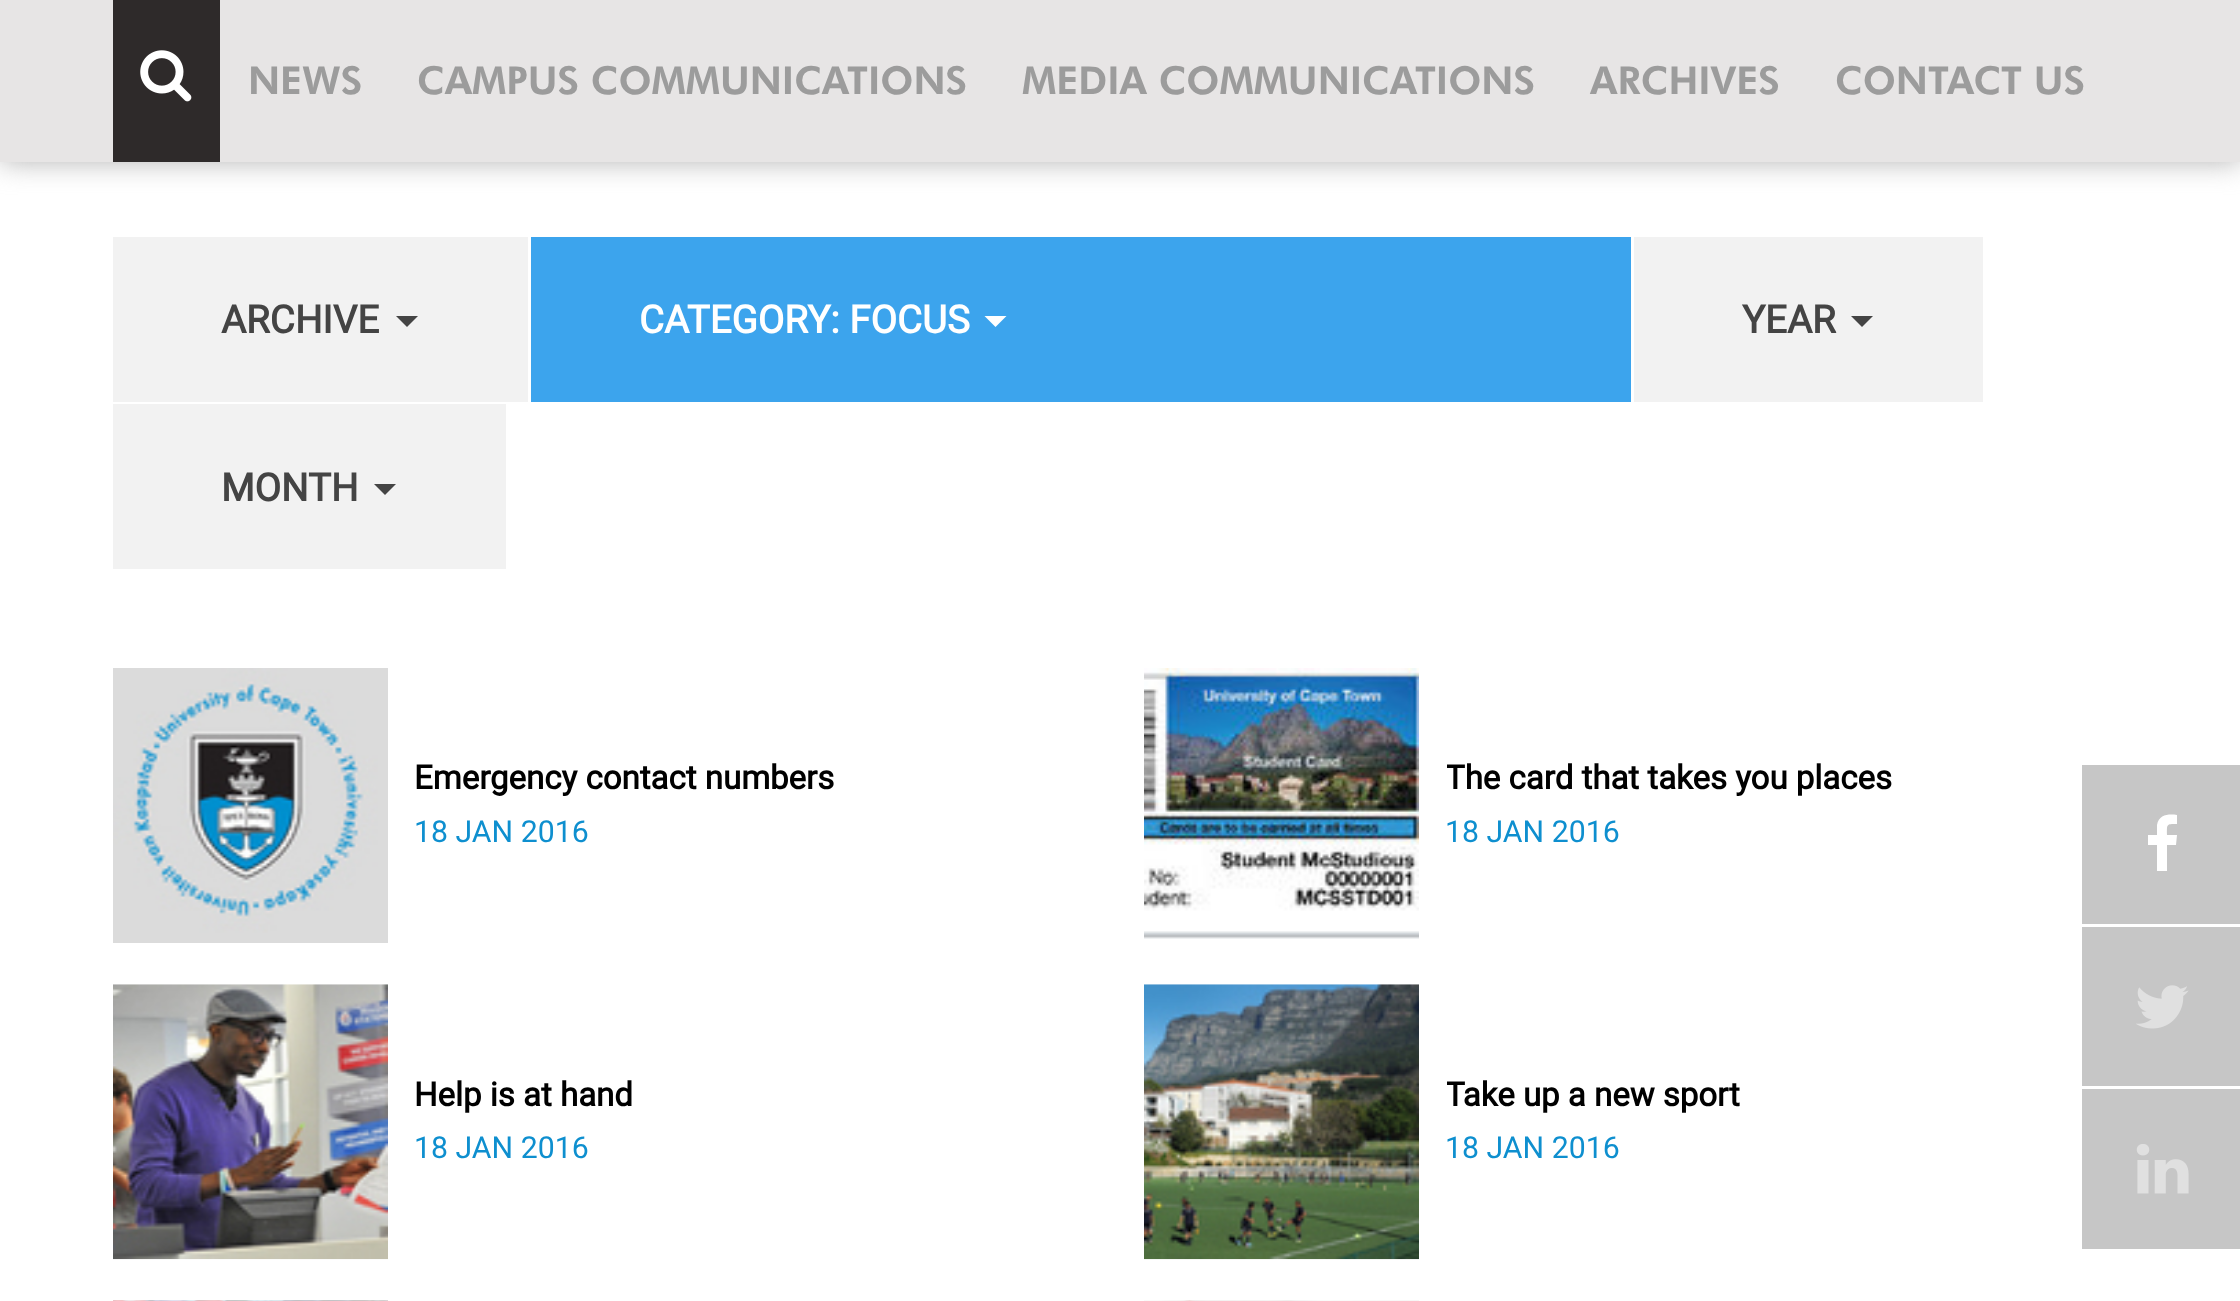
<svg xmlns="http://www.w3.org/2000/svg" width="2240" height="1301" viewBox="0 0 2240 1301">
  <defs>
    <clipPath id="clip1"><rect x="1447" y="759" width="684" height="39"/></clipPath>
    <clipPath id="clip2"><rect x="1447" y="1075" width="684" height="39"/></clipPath>
  </defs>
  <rect width="100%" height="100%" fill="rgb(255,255,255)"/>
  <rect x="0" y="0" width="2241" height="162" fill="rgb(179,179,179)" filter="blur(14px)"/>
  <rect x="0" y="0" width="2240" height="162" fill="rgb(231,229,229)"/>
  <rect x="113" y="0" width="107" height="162" fill="rgb(46,42,42)"/>
  <image x="140" y="50" width="52" height="52" href="pic1.png"/>
  <g font-family="Futura" font-size="38.5" font-weight="900" fill="rgb(156,156,156)">
    <text x="248" y="94">NEWS</text>
    <text x="417" y="94">CAMPUS COMMUNICATIONS</text>
    <text x="1022" y="94">MEDIA COMMUNICATIONS</text>
    <text x="1590" y="94">ARCHIVES</text>
    <text x="1835" y="94">CONTACT US</text>
  </g>
  <rect x="113" y="237" width="415" height="165" fill="rgb(242,242,242)"/>
  <text x="221" y="333" font-family="Roboto" font-size="38.5" font-weight="bold" fill="rgb(68,68,68)">ARCHIVE</text>
  <path d="M396 316H418L407 327Z" fill="rgb(68,68,68)"/>
  <rect x="531" y="237" width="1100" height="165" fill="rgb(60,164,237)"/>
  <text x="639" y="333" font-family="Roboto" font-size="38.5" font-weight="bold" fill="rgb(255,255,255)">CATEGORY: FOCUS</text>
  <path d="M984.5 316H1006.5L995.5 327Z" fill="rgb(255,255,255)"/>
  <rect x="1634" y="237" width="349" height="165" fill="rgb(242,242,242)"/>
  <text x="1742" y="333" font-family="Roboto" font-size="38.5" font-weight="bold" fill="rgb(68,68,68)">YEAR</text>
  <path d="M1851 316H1873L1862 327Z" fill="rgb(68,68,68)"/>
  <rect x="113" y="404" width="393" height="165" fill="rgb(242,242,242)"/>
  <text x="221" y="501" font-family="Roboto" font-size="38.5" font-weight="bold" fill="rgb(68,68,68)">MONTH</text>
  <path d="M374 484H396L385 495Z" fill="rgb(68,68,68)"/>
  <image x="113" y="668" width="275" height="275" href="pic2.png"/>
  <text x="414" y="789" font-family="Roboto" font-size="33" font-weight="bold" fill="rgb(0,0,0)">Emergency contact numbers</text>
  <text x="414" y="842" font-family="Roboto" font-size="30.25" fill="rgb(14,143,207)">18 JAN 2016</text>
  <image x="1144" y="668" width="275" height="271" href="pic3.png"/>
  <g clip-path="url(#clip1)">
    <text x="1445" y="789" font-family="Roboto" font-size="33" font-weight="bold" fill="rgb(0,0,0)">The card that takes you places</text>
  </g>
  <text x="1445" y="842" font-family="Roboto" font-size="30.25" fill="rgb(14,143,207)">18 JAN 2016</text>
  <image x="113" y="984" width="275" height="276" href="pic4.png"/>
  <text x="414" y="1106" font-family="Roboto" font-size="33" font-weight="bold" fill="rgb(0,0,0)">Help is at hand</text>
  <text x="414" y="1158" font-family="Roboto" font-size="30.25" fill="rgb(14,143,207)">18 JAN 2016</text>
  <image x="1144" y="984" width="275" height="276" href="pic5.png"/>
  <g clip-path="url(#clip2)">
    <text x="1445" y="1106" font-family="Roboto" font-size="33" font-weight="bold" fill="rgb(0,0,0)">Take up a new sport</text>
  </g>
  <text x="1445" y="1158" font-family="Roboto" font-size="30.25" fill="rgb(14,143,207)">18 JAN 2016</text>
  <image x="113" y="1300" width="275" height="1" href="pic6.png"/>
  <image x="1144" y="1300" width="275" height="1" href="pic7.png"/>
  <rect x="2082" y="765" width="158" height="159" fill="rgb(198,198,198)"/>
  <path d="M2177 815V824C2166 824 2167 824 2167 835H2177L2176 845H2167V871H2157V845H2148V835H2157V825C2159 814 2169 814 2177 815Z" fill="rgb(255,255,255)"/>
  <rect x="2082" y="927" width="158" height="159" fill="rgb(198,198,198)"/>
  <image x="2136" y="985" width="53" height="44" href="pic8.png"/>
  <rect x="2082" y="1089" width="158" height="160" fill="rgb(198,198,198)"/>
  <image x="2136" y="1144" width="53" height="50" href="pic9.png"/>
</svg>
